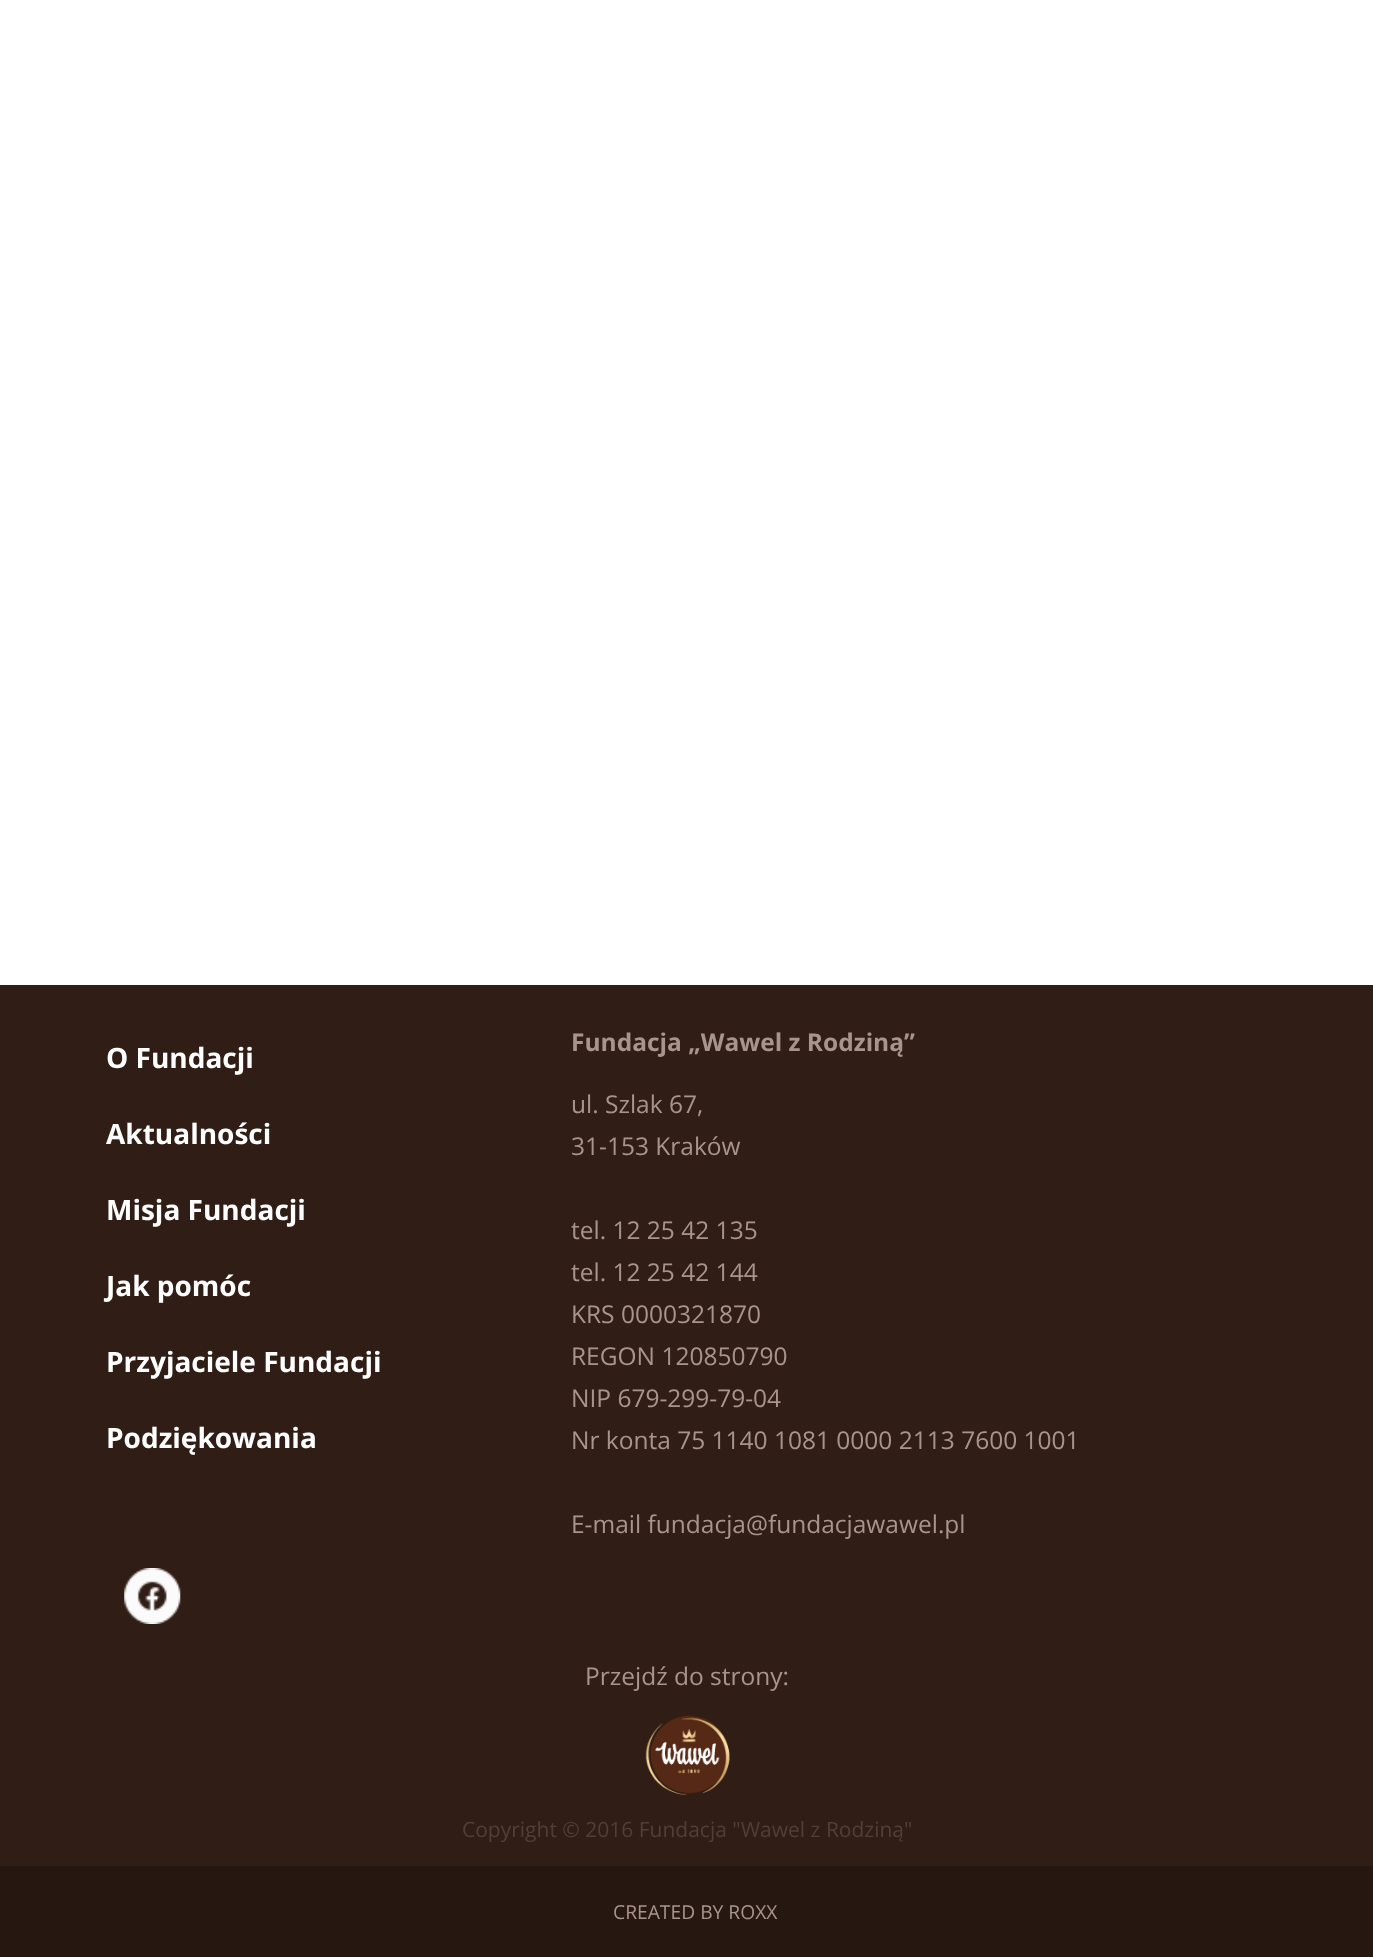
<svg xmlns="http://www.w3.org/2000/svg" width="1373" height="1957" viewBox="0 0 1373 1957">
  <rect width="100%" height="100%" fill="rgb(255,255,255)"/>
  <rect x="0" y="985" width="1373" height="881" fill="rgb(48,30,22)"/>
  <g font-family="Open Sans" font-size="28" font-weight="bold" fill="rgb(255,255,255)">
    <text x="106" y="1068">O Fundacji</text>
    <text x="106" y="1144">Aktualności</text>
    <text x="106" y="1220">Misja Fundacji</text>
    <text x="106" y="1296">Jak pomóc</text>
    <text x="106" y="1372">Przyjaciele Fundacji</text>
    <text x="106" y="1448">Podziękowania</text>
  </g>
  <text x="571" y="1051" font-family="Open Sans" font-size="24.5" font-weight="bold" fill="rgb(169,148,141)">Fundacja „Wawel z Rodziną”</text>
  <g font-family="Open Sans" font-size="24.5" fill="rgb(169,148,141)">
    <text>
      <tspan x="571" y="1113">ul. Szlak 67,</tspan>
      <tspan x="571" y="1155">31-153 Kraków</tspan>
    </text>
    <text>
      <tspan x="571" y="1239">tel. 12 25 42 135</tspan>
      <tspan x="571" y="1281">tel. 12 25 42 144</tspan>
      <tspan x="571" y="1323">KRS 0000321870</tspan>
      <tspan x="571" y="1365">REGON 120850790</tspan>
      <tspan x="571" y="1407">NIP 679-299-79-04</tspan>
      <tspan x="571" y="1449">Nr konta 75 1140 1081 0000 2113 7600 1001</tspan>
    </text>
    <text x="571" y="1533">E-mail fundacja@fundacjawawel.pl</text>
  </g>
  <image x="124" y="1568" width="57" height="56" href="pic1.png"/>
  <text x="585" y="1685" font-family="Open Sans" font-size="24.5" fill="rgb(169,148,141)">Przejdź do strony:</text>
  <image x="645" y="1716" width="85" height="79" href="pic2.png"/>
  <text x="462" y="1837" font-family="Open Sans" font-size="21" fill="rgb(80,63,56)">Copyright © 2016 Fundacja "Wawel z Rodziną"</text>
  <rect x="0" y="1866" width="1373" height="91" fill="rgb(38,23,17)"/>
  <text x="613" y="1919" font-family="Open Sans" font-size="19.25" fill="rgb(169,148,141)">CREATED BY ROXX</text>
</svg>
